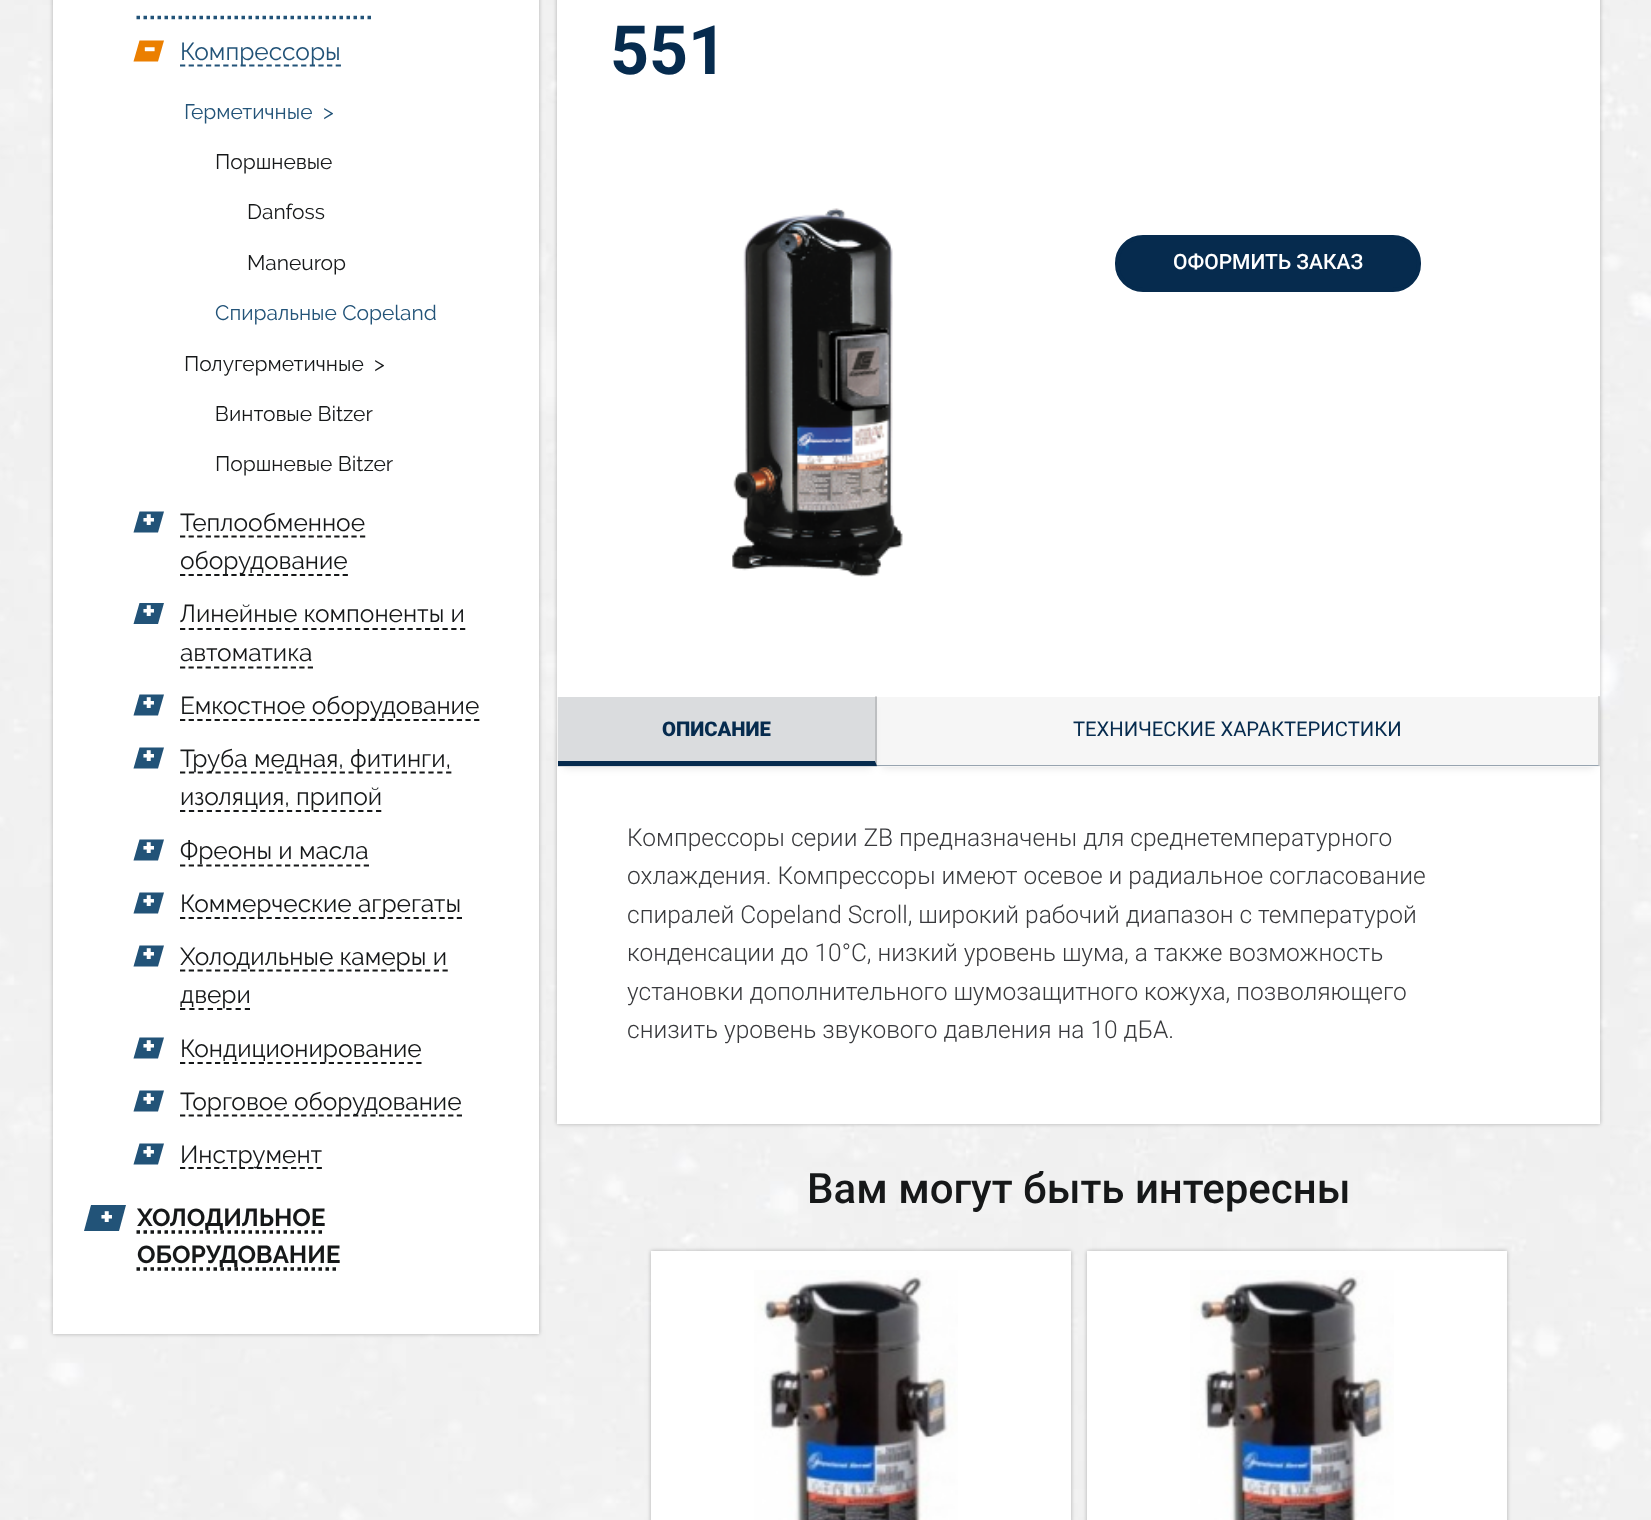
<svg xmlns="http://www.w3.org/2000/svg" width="1651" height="1520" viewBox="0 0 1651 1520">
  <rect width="100%" height="100%" fill="rgb(255,255,255)"/>
  <image x="0" y="0" width="1651" height="1520" href="pic1.png"/>
  <rect x="53" y="-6" width="486" height="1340" fill="rgba(0,0,0,0.27)" filter="blur(2px)"/>
  <rect x="53" y="0" width="486" height="1334" fill="rgb(255,255,255)"/>
  <path d="M136.5 17.5H373" fill="none" stroke="rgb(34,83,120)" stroke-width="3.5" stroke-dasharray="3.5 3.5"/>
  <path d="M139.5 40.5H164L158 61.5H133.5Z" fill="rgb(235,127,0)"/>
  <text x="143" y="58" font-family="Raleway" font-size="32" font-weight="bold" fill="rgb(255,255,255)">-</text>
  <path d="M180 65.5H341" fill="none" stroke="rgb(34,83,120)" stroke-width="1.8" stroke-dasharray="5.25 3.4"/>
  <text x="180" y="60" font-family="Raleway" font-size="24.5" fill="rgb(34,83,120)">Компрессоры</text>
  <g font-family="Raleway" font-size="21" fill="rgb(34,83,120)">
    <text x="184" y="119">Герметичные</text>
    <text x="323" y="119">&gt;</text>
  </g>
  <g font-family="Raleway" font-size="21" fill="rgb(22,24,25)">
    <text x="215" y="169">Поршневые</text>
    <text x="247" y="219">Danfoss</text>
    <text x="247" y="270">Maneurop</text>
  </g>
  <text x="215" y="320" font-family="Raleway" font-size="21" fill="rgb(34,83,120)">Спиральные Copeland</text>
  <g font-family="Raleway" font-size="21" fill="rgb(22,24,25)">
    <text x="184" y="371">Полугерметичные</text>
    <text x="374" y="371">&gt;</text>
    <text x="215" y="421">Винтовые Bitzer</text>
    <text x="215" y="471">Поршневые Bitzer</text>
  </g>
  <path d="M139.5 511.5H164L158 532.5H133.5Z" fill="rgb(34,83,120)"/>
  <text x="142" y="531" font-family="Raleway" font-size="32" font-weight="bold" fill="rgb(255,255,255)">+</text>
  <text x="180" y="531" font-family="Raleway" font-size="24.5" fill="rgb(22,24,25)">Теплообменное</text>
  <path d="M180 536.5H366" fill="none" stroke="rgb(22,24,25)" stroke-width="1.8" stroke-dasharray="5.25 3.32"/>
  <path d="M180 575H348" fill="none" stroke="rgb(22,24,25)" stroke-width="1.8" stroke-dasharray="5.25 3.31"/>
  <text x="180" y="569" font-family="Raleway" font-size="24.5" fill="rgb(22,24,25)">оборудование</text>
  <path d="M139.5 603H164L158 624H133.5Z" fill="rgb(34,83,120)"/>
  <text x="142" y="622" font-family="Raleway" font-size="32" font-weight="bold" fill="rgb(255,255,255)">+</text>
  <text x="180" y="622" font-family="Raleway" font-size="24.5" fill="rgb(22,24,25)">Линейные компоненты и</text>
  <path d="M180 629H465.5" fill="none" stroke="rgb(22,24,25)" stroke-width="1.8" stroke-dasharray="5.25 3.5"/>
  <text x="180" y="661" font-family="Raleway" font-size="24.5" fill="rgb(22,24,25)">автоматика</text>
  <path d="M180 667.5H313" fill="none" stroke="rgb(22,24,25)" stroke-width="1.8" stroke-dasharray="5.25 3.27"/>
  <path d="M139.5 694.5H164L158 715.5H133.5Z" fill="rgb(34,83,120)"/>
  <text x="142" y="714" font-family="Raleway" font-size="32" font-weight="bold" fill="rgb(255,255,255)">+</text>
  <path d="M180 720H479.5" fill="none" stroke="rgb(22,24,25)" stroke-width="1.8" stroke-dasharray="5.25 3.4"/>
  <text x="180" y="714" font-family="Raleway" font-size="24.5" fill="rgb(22,24,25)">Емкостное оборудование</text>
  <path d="M139.5 747.5H164L158 768.5H133.5Z" fill="rgb(34,83,120)"/>
  <text x="142" y="767" font-family="Raleway" font-size="32" font-weight="bold" fill="rgb(255,255,255)">+</text>
  <path d="M180 772.5H451.5" fill="none" stroke="rgb(22,24,25)" stroke-width="1.8" stroke-dasharray="5.25 3.62"/>
  <text x="180" y="767" font-family="Raleway" font-size="24.5" fill="rgb(22,24,25)">Труба медная, фитинги,</text>
  <path d="M180 811H381.5" fill="none" stroke="rgb(22,24,25)" stroke-width="1.8" stroke-dasharray="5.25 3.66"/>
  <text x="180" y="805" font-family="Raleway" font-size="24.5" fill="rgb(22,24,25)">изоляция, припой</text>
  <path d="M139.5 839.5H164L158 860.5H133.5Z" fill="rgb(34,83,120)"/>
  <text x="142" y="859" font-family="Raleway" font-size="32" font-weight="bold" fill="rgb(255,255,255)">+</text>
  <path d="M180 865.5H369" fill="none" stroke="rgb(22,24,25)" stroke-width="1.8" stroke-dasharray="5.25 3.5"/>
  <text x="180" y="859" font-family="Raleway" font-size="24.5" fill="rgb(22,24,25)">Фреоны и масла</text>
  <path d="M139.5 892.5H164L158 913.5H133.5Z" fill="rgb(34,83,120)"/>
  <text x="142" y="912" font-family="Raleway" font-size="32" font-weight="bold" fill="rgb(255,255,255)">+</text>
  <path d="M180 918H462" fill="none" stroke="rgb(22,24,25)" stroke-width="1.8" stroke-dasharray="5.25 3.4"/>
  <text x="180" y="912" font-family="Raleway" font-size="24.5" fill="rgb(22,24,25)">Коммерческие агрегаты</text>
  <path d="M139.5 945.5H164L158 966.5H133.5Z" fill="rgb(34,83,120)"/>
  <text x="142" y="965" font-family="Raleway" font-size="32" font-weight="bold" fill="rgb(255,255,255)">+</text>
  <path d="M180 970.5H448" fill="none" stroke="rgb(22,24,25)" stroke-width="1.8" stroke-dasharray="5.25 3.5"/>
  <text x="180" y="965" font-family="Raleway" font-size="24.5" fill="rgb(22,24,25)">Холодильные камеры и</text>
  <path d="M180 1009H250" fill="none" stroke="rgb(22,24,25)" stroke-width="1.8" stroke-dasharray="5.25 4.01"/>
  <text x="180" y="1003" font-family="Raleway" font-size="24.5" fill="rgb(22,24,25)">двери</text>
  <path d="M139.5 1037.5H164L158 1058.5H133.5Z" fill="rgb(34,83,120)"/>
  <text x="142" y="1057" font-family="Raleway" font-size="32" font-weight="bold" fill="rgb(255,255,255)">+</text>
  <path d="M180 1063H422" fill="none" stroke="rgb(22,24,25)" stroke-width="1.8" stroke-dasharray="5.25 3.5"/>
  <text x="180" y="1057" font-family="Raleway" font-size="24.5" fill="rgb(22,24,25)">Кондиционирование</text>
  <path d="M139.5 1090.5H164L158 1111.5H133.5Z" fill="rgb(34,83,120)"/>
  <text x="142" y="1110" font-family="Raleway" font-size="32" font-weight="bold" fill="rgb(255,255,255)">+</text>
  <path d="M180 1115.5H462" fill="none" stroke="rgb(22,24,25)" stroke-width="1.8" stroke-dasharray="5.25 3.4"/>
  <text x="180" y="1110" font-family="Raleway" font-size="24.5" fill="rgb(22,24,25)">Торговое оборудование</text>
  <path d="M139.5 1143.5H164L158 1164.5H133.5Z" fill="rgb(34,83,120)"/>
  <text x="142" y="1163" font-family="Raleway" font-size="32" font-weight="bold" fill="rgb(255,255,255)">+</text>
  <path d="M180 1168H322" fill="none" stroke="rgb(22,24,25)" stroke-width="1.8" stroke-dasharray="5.25 3.29"/>
  <text x="180" y="1163" font-family="Raleway" font-size="24.5" fill="rgb(22,24,25)">Инструмент</text>
  <path d="M91 1205H126L119 1231H84Z" fill="rgb(34,83,120)"/>
  <text x="100" y="1228" font-family="Raleway" font-size="32" font-weight="bold" fill="rgb(255,255,255)">+</text>
  <path d="M136.5 1232H325.5" fill="none" stroke="rgb(22,24,25)" stroke-width="3.5" stroke-dasharray="3.5 3.5"/>
  <text x="137" y="1226" font-family="Raleway" font-size="24.5" font-weight="bold" fill="rgb(22,24,25)">ХОЛОДИЛЬНОЕ</text>
  <path d="M136.5 1269H339.5" fill="none" stroke="rgb(22,24,25)" stroke-width="3.5" stroke-dasharray="3.5 3.5"/>
  <text x="137" y="1263" font-family="Raleway" font-size="24.5" font-weight="bold" fill="rgb(22,24,25)">ОБОРУДОВАНИЕ</text>
  <rect x="557" y="-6" width="1043" height="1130" fill="rgba(0,0,0,0.27)" filter="blur(2px)"/>
  <rect x="557" y="0" width="1043" height="1124" fill="rgb(255,255,255)"/>
  <text x="610" y="74" font-family="Roboto" font-size="68" font-weight="bold" fill="rgb(6,43,78)">551</text>
  <image x="732" y="208" width="171" height="369" href="pic2.png"/>
  <rect x="1117" y="237" width="302" height="53" rx="26" fill="rgb(6,43,78)" stroke="rgb(6,43,78)" stroke-width="4"/>
  <text x="1173" y="269" font-family="Roboto" font-size="21" font-weight="500" fill="rgb(255,255,255)">ОФОРМИТЬ ЗАКАЗ</text>
  <rect x="557" y="697" width="1" height="70" fill="rgb(246,246,246)"/>
  <rect x="882" y="707" width="712" height="60" fill="rgba(0,0,0,0.13)" filter="blur(4.5px)"/>
  <rect x="877" y="697" width="723" height="70" fill="rgb(246,246,246)"/>
  <path d="M1600 696V766L1598 765V696Z" fill="rgba(0,0,0,0.13)"/>
  <path d="M1600 766H877V765H1598Z" fill="rgb(151,164,176)"/>
  <rect x="564" y="707" width="308" height="60" fill="rgba(0,0,0,0.13)" filter="blur(4.5px)"/>
  <rect x="558" y="697" width="319" height="70" fill="rgb(218,220,222)"/>
  <path d="M877 696V766L875 761V696Z" fill="rgba(0,0,0,0.13)"/>
  <path d="M877 766H558V761H875Z" fill="rgb(6,43,78)"/>
  <text x="662" y="736" font-family="Roboto" font-size="20.25" font-weight="900" fill="rgb(6,43,78)">ОПИСАНИЕ</text>
  <text x="1073" y="736" font-family="Roboto" font-size="20.25" fill="rgb(6,43,78)">ТЕХНИЧЕСКИЕ ХАРАКТЕРИСТИКИ</text>
  <g font-family="Roboto" font-size="24.5" font-weight="300" fill="rgb(56,57,60)">
    <text>
      <tspan x="627" y="846">Компрессоры серии ZB предназначены для среднетемпературного</tspan>
      <tspan x="627" y="884">охлаждения. Компрессоры имеют осевое и радиальное согласование</tspan>
      <tspan x="627" y="923">спиралей Copeland Scroll, широкий рабочий диапазон с температурой</tspan>
      <tspan x="627" y="961">конденсации до 10°C, низкий уровень шума, а также возможность</tspan>
      <tspan x="627" y="1000">установки дополнительного шумозащитного кожуха, позволяющего</tspan>
      <tspan x="627" y="1038">снизить уровень звукового давления на 10 дБА.</tspan>
    </text>
  </g>
  <text x="807" y="1203" font-family="Roboto" font-size="42" font-weight="500" fill="rgb(22,24,25)">Вам могут быть интересны</text>
  <rect x="651" y="1251" width="420" height="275" fill="rgba(0,0,0,0.27)" filter="blur(2px)"/>
  <rect x="651" y="1251" width="420" height="269" fill="rgb(255,255,255)"/>
  <image x="754" y="1270" width="204" height="250" href="pic3.png"/>
  <rect x="1087" y="1251" width="420" height="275" fill="rgba(0,0,0,0.27)" filter="blur(2px)"/>
  <rect x="1087" y="1251" width="420" height="269" fill="rgb(255,255,255)"/>
  <image x="1190" y="1270" width="204" height="250" href="pic4.png"/>
</svg>
